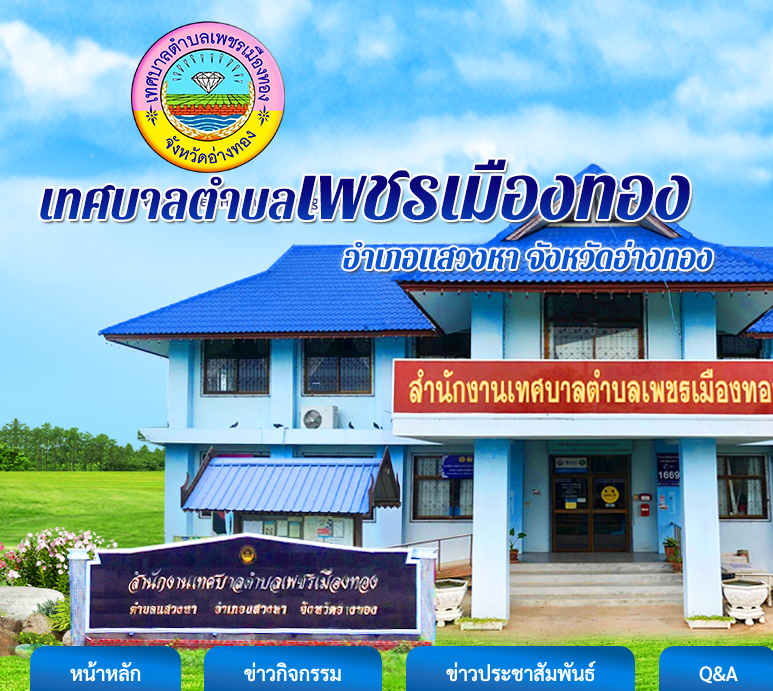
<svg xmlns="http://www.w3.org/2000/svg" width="773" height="691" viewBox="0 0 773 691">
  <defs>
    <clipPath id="clip1"><rect x="30" y="646" width="151" height="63" rx="15"/></clipPath>
    <linearGradient id="g1" gradientUnits="userSpaceOnUse" x1="101" y1="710" x2="110" y2="637"><stop offset="0.09" stop-color="rgb(0,90,167)"/><stop offset="0.32" stop-color="rgb(29,107,184)"/><stop offset="0.53" stop-color="rgb(0,129,223)"/><stop offset="0.67" stop-color="rgb(2,126,226)"/><stop offset="0.9" stop-color="rgb(0,87,152)"/></linearGradient>
    <clipPath id="clip2"><rect x="204" y="646" width="178" height="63" rx="15"/></clipPath>
    <linearGradient id="g2" gradientUnits="userSpaceOnUse" x1="288" y1="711" x2="298" y2="636"><stop offset="0.09" stop-color="rgb(0,90,167)"/><stop offset="0.32" stop-color="rgb(29,107,184)"/><stop offset="0.53" stop-color="rgb(0,129,223)"/><stop offset="0.67" stop-color="rgb(2,126,226)"/><stop offset="0.9" stop-color="rgb(0,87,152)"/></linearGradient>
    <clipPath id="clip3"><rect x="406" y="646" width="229" height="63" rx="15"/></clipPath>
    <linearGradient id="g3" gradientUnits="userSpaceOnUse" x1="515" y1="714" x2="526" y2="633"><stop offset="0.09" stop-color="rgb(0,90,167)"/><stop offset="0.32" stop-color="rgb(29,107,184)"/><stop offset="0.53" stop-color="rgb(0,129,223)"/><stop offset="0.67" stop-color="rgb(2,126,226)"/><stop offset="0.9" stop-color="rgb(0,87,152)"/></linearGradient>
    <clipPath id="clip4"><rect x="659" y="646" width="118" height="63" rx="15"/></clipPath>
    <linearGradient id="g4" gradientUnits="userSpaceOnUse" x1="714" y1="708" x2="722" y2="639"><stop offset="0.09" stop-color="rgb(0,90,167)"/><stop offset="0.32" stop-color="rgb(29,107,184)"/><stop offset="0.53" stop-color="rgb(0,129,223)"/><stop offset="0.67" stop-color="rgb(2,126,226)"/><stop offset="0.9" stop-color="rgb(0,87,152)"/></linearGradient>
  </defs>
  <rect width="100%" height="100%" fill="rgb(255,255,255)"/>
  <image x="0" y="0" width="4" height="691" href="pic1.png"/>
  <image x="4" y="0" width="769" height="691" href="pic2.png"/>
  <image x="131" y="21" width="154" height="152" href="pic3.png"/>
  <image x="36" y="155" width="682" height="121" href="pic4.png"/>
  <g clip-path="url(#clip1)">
    <path d="M45 646H166C174.5 646 181 652.5 181 661V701H30V661C30 652.5 36.5 646 45 646Z" fill="url(#g1)"/>
  </g>
  <text x="70" y="681" font-family="Sarabun" font-size="20" font-weight="bold" fill="rgb(255,255,255)">หน้าหลัก</text>
  <g clip-path="url(#clip2)">
    <path d="M219 646H367C375.5 646 382 652.5 382 661V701H204V661C204 652.5 210.5 646 219 646Z" fill="url(#g2)"/>
  </g>
  <text x="244" y="681" font-family="Sarabun" font-size="20" font-weight="bold" fill="rgb(255,255,255)">ข่าวกิจกรรม</text>
  <g clip-path="url(#clip3)">
    <path d="M421 646H620C628.5 646 635 652.5 635 661V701H406V661C406 652.5 412.5 646 421 646Z" fill="url(#g3)"/>
  </g>
  <text x="446" y="681" font-family="Sarabun" font-size="20" font-weight="bold" fill="rgb(255,255,255)">ข่าวประชาสัมพันธ์</text>
  <g clip-path="url(#clip4)">
    <path d="M674 646H762C770.5 646 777 652.5 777 661V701H659V661C659 652.5 665.5 646 674 646Z" fill="url(#g4)"/>
  </g>
  <text x="699" y="681" font-family="Sarabun" font-size="20" font-weight="bold" fill="rgb(255,255,255)">Q&amp;A</text>
</svg>
